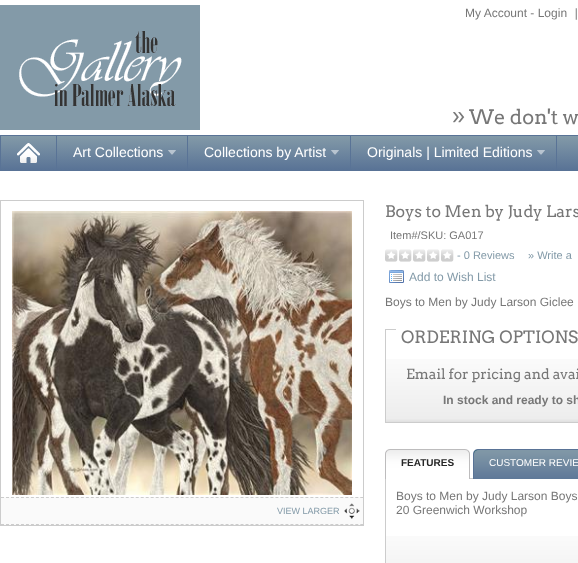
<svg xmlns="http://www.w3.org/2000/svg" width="578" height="563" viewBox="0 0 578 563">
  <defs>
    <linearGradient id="g1" gradientUnits="userSpaceOnUse" x1="481" y1="136" x2="481" y2="170"><stop offset="0" stop-color="rgb(131,154,168)"/><stop offset="1" stop-color="rgb(89,115,150)"/></linearGradient>
  </defs>
  <rect width="100%" height="100%" fill="rgb(255,255,255)"/>
  <image x="0" y="5" width="200" height="125" href="pic1.png"/>
  <image x="575" y="8" width="2" height="12" href="pic2.png"/>
  <text x="465" y="17" font-family="Liberation Sans" font-size="12" fill="rgb(119,119,119)">My Account - Login</text>
  <image x="453" y="112" width="12" height="11" href="pic3.png"/>
  <text x="469" y="124" font-family="Arvo" font-size="20" fill="rgb(119,119,119)">We don't w</text>
  <rect x="1" y="136" width="577" height="34" fill="url(#g1)"/>
  <rect x="0.5" y="135.5" width="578" height="35" fill="none" stroke="rgb(89,115,150)"/>
  <rect x="56" y="136" width="1" height="34" fill="rgb(89,115,150)"/>
  <image x="17" y="143" width="23" height="20" href="pic4.png"/>
  <rect x="187" y="136" width="1" height="34" fill="rgb(89,115,150)"/>
  <text x="73" y="157" font-family="Liberation Sans" font-size="14" fill="rgb(255,255,255)">Art Collections</text>
  <image x="168" y="150" width="8" height="5" href="pic5.png"/>
  <rect x="350" y="136" width="1" height="34" fill="rgb(89,115,150)"/>
  <text x="204" y="157" font-family="Liberation Sans" font-size="14" fill="rgb(255,255,255)">Collections by Artist</text>
  <image x="331" y="150" width="8" height="5" href="pic5.png"/>
  <rect x="556" y="136" width="1" height="34" fill="rgb(89,115,150)"/>
  <text x="367" y="157" font-family="Liberation Sans" font-size="14" fill="rgb(255,255,255)">Originals | Limited Editions</text>
  <image x="537" y="150" width="8" height="5" href="pic5.png"/>
  <rect x="0.5" y="200.5" width="363" height="325" fill="none" stroke="rgb(204,204,204)"/>
  <image x="12" y="211" width="340" height="284" href="pic6.png"/>
  <rect x="1" y="497" width="362" height="28" fill="rgb(250,250,250)"/>
  <path d="M1 497.5H363" fill="none" stroke="rgb(204,204,204)" stroke-dasharray="3 1.99"/>
  <path d="M1 524.5H363" fill="none" stroke="rgb(204,204,204)" stroke-dasharray="3 1.99"/>
  <image x="344" y="503" width="16" height="16" href="pic7.png"/>
  <text x="277" y="514" font-family="Liberation Sans" font-size="9" fill="rgb(131,154,168)">VIEW LARGER</text>
  <text x="385" y="217" font-family="Arvo" font-size="16" fill="rgb(119,119,119)">Boys to Men by Judy Lars</text>
  <text x="390" y="239" font-family="Liberation Sans" font-size="11" fill="rgb(119,119,119)">Item#/SKU: GA017</text>
  <image x="385" y="249" width="69" height="13" href="pic8.png"/>
  <g font-family="Liberation Sans" font-size="11" fill="rgb(131,154,168)">
    <text x="457" y="259">- 0 Reviews</text>
    <text x="528" y="259">» Write a</text>
  </g>
  <image x="389" y="270" width="15" height="13" href="pic9.png"/>
  <text x="409" y="281" font-family="Liberation Sans" font-size="12" fill="rgb(131,154,168)">Add to Wish List</text>
  <text x="385" y="306" font-family="Liberation Sans" font-size="12" fill="rgb(119,119,119)">Boys to Men by Judy Larson Giclee</text>
  <image x="386" y="359" width="192" height="63" href="pic10.png"/>
  <rect x="385.5" y="329.5" width="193" height="93" fill="none" stroke="rgb(204,204,204)"/>
  <rect x="396" y="329" width="182" height="1" fill="rgb(255,255,255)"/>
  <text x="401" y="343" font-family="Arvo" font-size="17" fill="rgb(119,119,119)">ORDERING OPTIONS</text>
  <text x="406" y="379" font-family="Arvo" font-size="14" fill="rgb(119,119,119)">Email for pricing and avai</text>
  <text x="443" y="404" font-family="Liberation Sans" font-size="12" font-weight="bold" fill="rgb(119,119,119)">In stock and ready to sh</text>
  <image x="386" y="536" width="192" height="27" href="pic16.png"/>
  <rect x="385.5" y="478.5" width="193" height="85" fill="none" stroke="rgb(204,204,204)"/>
  <image x="464" y="449" width="6" height="30" href="pic11.png"/>
  <image x="385" y="449" width="6" height="30" href="pic12.png"/>
  <image x="391" y="449" width="73" height="30" href="pic13.png"/>
  <text x="401" y="466" font-family="Liberation Sans" font-size="10" font-weight="bold" fill="rgb(38,38,38)">FEATURES</text>
  <image x="473" y="449" width="6" height="30" href="pic14.png"/>
  <image x="479" y="449" width="99" height="30" href="pic15.png"/>
  <text x="489" y="466" font-family="Liberation Sans" font-size="10" fill="rgb(255,255,255)">CUSTOMER REVIE</text>
  <g font-family="Liberation Sans" font-size="12" fill="rgb(119,119,119)">
    <text>
      <tspan x="396" y="500">Boys to Men by Judy Larson Boys</tspan>
      <tspan x="396" y="514">20 Greenwich Workshop</tspan>
    </text>
  </g>
</svg>
